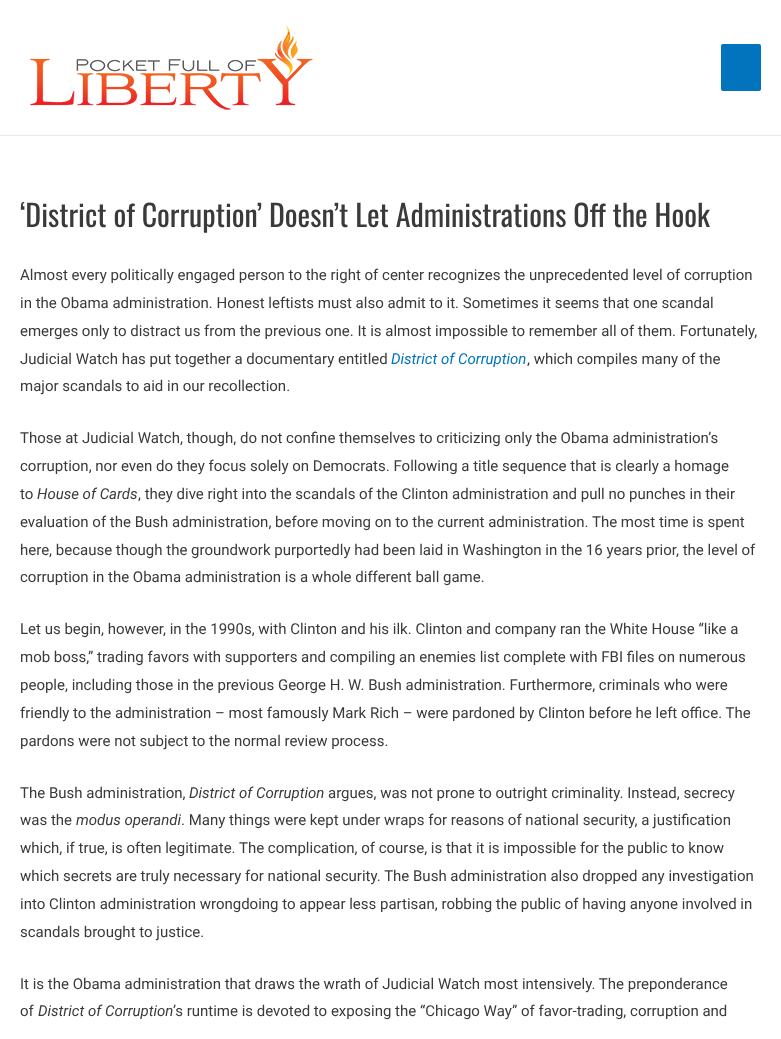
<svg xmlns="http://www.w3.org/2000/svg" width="781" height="1039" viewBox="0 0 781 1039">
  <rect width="100%" height="100%" fill="rgb(255,255,255)"/>
  <rect x="0" y="135" width="781" height="1" fill="rgb(234,234,234)"/>
  <image x="30" y="25" width="283" height="85" href="pic1.png"/>
  <rect x="721" y="44" width="40" height="47" rx="2" fill="rgb(2,116,190)"/>
  <text x="20" y="227" font-family="Oswald" font-size="30" fill="rgb(58,58,58)">‘District of Corruption’ Doesn’t Let Administrations Off the Hook</text>
  <g font-family="Roboto" font-size="15" fill="rgb(58,58,58)">
    <text>
      <tspan x="20" y="280">Almost every politically engaged person to the right of center recognizes the unprecedented level of corruption</tspan>
      <tspan x="20" y="308">in the Obama administration. Honest leftists must also admit to it. Sometimes it seems that one scandal</tspan>
      <tspan x="20" y="336">emerges only to distract us from the previous one. It is almost impossible to remember all of them. Fortunately,</tspan>
      <tspan x="20" y="364">Judicial Watch has put together a documentary entitled</tspan>
    </text>
  </g>
  <text x="391" y="364" font-family="Roboto" font-size="15" font-style="italic" fill="rgb(2,116,190)">District of Corruption</text>
  <g font-family="Roboto" font-size="15" fill="rgb(58,58,58)">
    <text x="527" y="364">, which compiles many of the</text>
    <text x="20" y="391">major scandals to aid in our recollection.</text>
    <text>
      <tspan x="20" y="443">Those at Judicial Watch, though, do not confine themselves to criticizing only the Obama administration’s</tspan>
      <tspan x="20" y="471">corruption, nor even do they focus solely on Democrats. Following a title sequence that is clearly a homage</tspan>
      <tspan x="20" y="499">to</tspan>
    </text>
  </g>
  <text x="37" y="499" font-family="Roboto" font-size="15" font-style="italic" fill="rgb(58,58,58)">House of Cards</text>
  <g font-family="Roboto" font-size="15" fill="rgb(58,58,58)">
    <text x="138" y="499">, they dive right into the scandals of the Clinton administration and pull no punches in their</text>
    <text>
      <tspan x="20" y="527">evaluation of the Bush administration, before moving on to the current administration. The most time is spent</tspan>
      <tspan x="20" y="555">here, because though the groundwork purportedly had been laid in Washington in the 16 years prior, the level of</tspan>
      <tspan x="20" y="582">corruption in the Obama administration is a whole different ball game.</tspan>
    </text>
    <text>
      <tspan x="20" y="634">Let us begin, however, in the 1990s, with Clinton and his ilk. Clinton and company ran the White House “like a</tspan>
      <tspan x="20" y="662">mob boss,” trading favors with supporters and compiling an enemies list complete with FBI files on numerous</tspan>
      <tspan x="20" y="690">people, including those in the previous George H. W. Bush administration. Furthermore, criminals who were</tspan>
      <tspan x="20" y="718">friendly to the administration – most famously Mark Rich – were pardoned by Clinton before he left office. The</tspan>
      <tspan x="20" y="746">pardons were not subject to the normal review process.</tspan>
    </text>
    <text x="20" y="798">The Bush administration,</text>
  </g>
  <text x="189" y="798" font-family="Roboto" font-size="15" font-style="italic" fill="rgb(58,58,58)">District of Corruption</text>
  <g font-family="Roboto" font-size="15" fill="rgb(58,58,58)">
    <text x="328" y="798">argues, was not prone to outright criminality. Instead, secrecy</text>
    <text x="20" y="825">was the</text>
  </g>
  <text x="76" y="825" font-family="Roboto" font-size="15" font-style="italic" fill="rgb(58,58,58)">modus operandi</text>
  <g font-family="Roboto" font-size="15" fill="rgb(58,58,58)">
    <text x="181" y="825">. Many things were kept under wraps for reasons of national security, a justification</text>
    <text>
      <tspan x="20" y="853">which, if true, is often legitimate. The complication, of course, is that it is impossible for the public to know</tspan>
      <tspan x="20" y="881">which secrets are truly necessary for national security. The Bush administration also dropped any investigation</tspan>
      <tspan x="20" y="909">into Clinton administration wrongdoing to appear less partisan, robbing the public of having anyone involved in</tspan>
      <tspan x="20" y="937">scandals brought to justice.</tspan>
    </text>
    <text>
      <tspan x="20" y="989">It is the Obama administration that draws the wrath of Judicial Watch most intensively. The preponderance</tspan>
      <tspan x="20" y="1016">of</tspan>
    </text>
  </g>
  <text x="38" y="1016" font-family="Roboto" font-size="15" font-style="italic" fill="rgb(58,58,58)">District of Corruption</text>
  <text x="173" y="1016" font-family="Roboto" font-size="15" fill="rgb(58,58,58)">’s runtime is devoted to exposing the “Chicago Way” of favor-trading, corruption and</text>
</svg>
